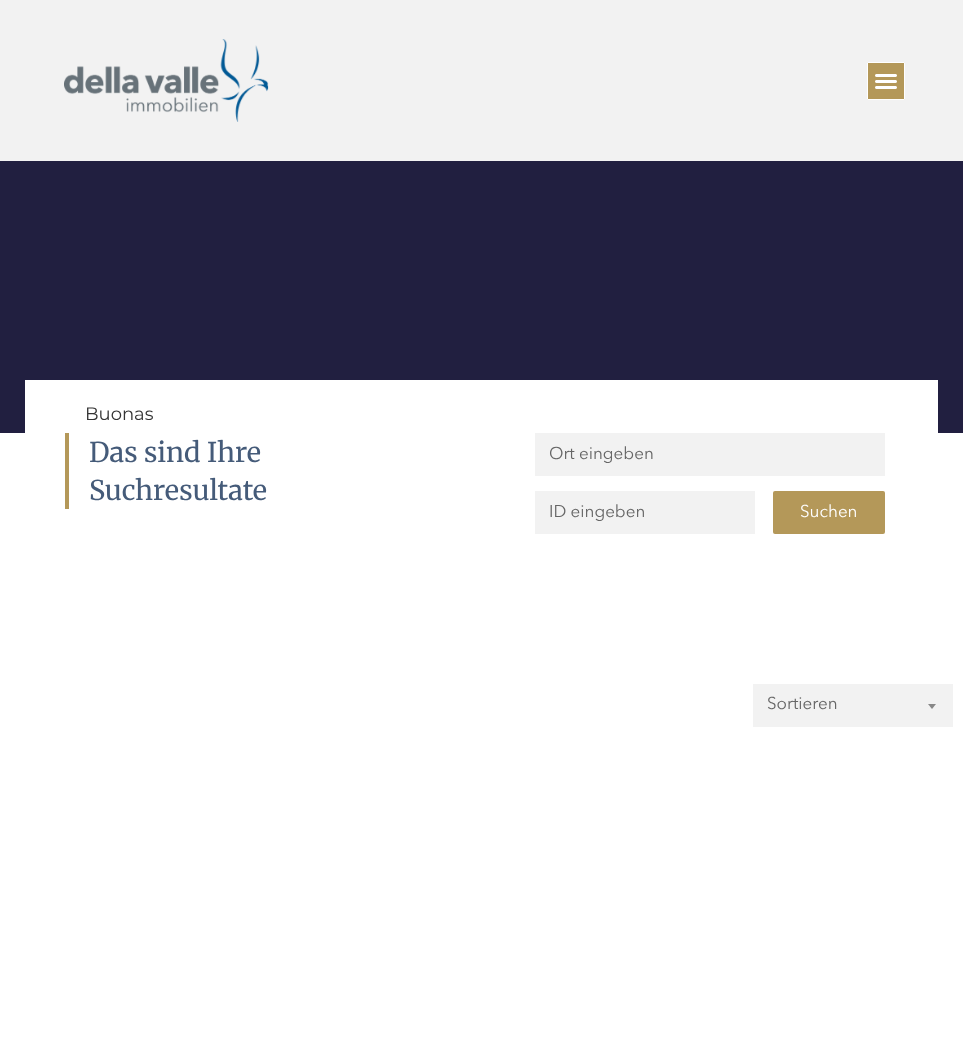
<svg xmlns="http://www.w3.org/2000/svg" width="963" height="1052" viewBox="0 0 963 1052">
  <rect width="100%" height="100%" fill="rgb(255,255,255)"/>
  <rect x="0" y="0" width="963" height="161" fill="rgb(242,242,242)"/>
  <image x="64" y="39" width="205" height="83" href="pic1.png"/>
  <rect x="867.5" y="62.5" width="37" height="37" rx="0.5" fill="rgb(180,152,89)" stroke="rgb(255,255,255)"/>
  <image x="875" y="74" width="22" height="15" href="pic2.png"/>
  <rect x="0" y="161" width="963" height="272" fill="rgb(33,31,64)"/>
  <rect x="25" y="380" width="913" height="53" fill="rgb(255,255,255)"/>
  <text x="85" y="420" font-family="Montserrat" font-size="18" fill="rgb(51,51,51)">Buonas</text>
  <rect x="65" y="433" width="4" height="76" fill="rgb(180,152,89)"/>
  <g font-family="Merriweather" font-size="27.25" fill="rgb(69,91,121)">
    <text>
      <tspan x="89" y="462">Das sind Ihre</tspan>
      <tspan x="89" y="500">Suchresultate</tspan>
    </text>
  </g>
  <rect x="535" y="433" width="350" height="43" fill="rgb(242,242,242)"/>
  <text x="549" y="459" font-family="Avenir Next" font-size="17" fill="rgb(102,102,102)">Ort eingeben</text>
  <rect x="535" y="491" width="220" height="43" fill="rgb(242,242,242)"/>
  <text x="549" y="517" font-family="Avenir Next" font-size="17" fill="rgb(102,102,102)">ID eingeben</text>
  <rect x="773" y="491" width="112" height="43" rx="2" fill="rgb(180,152,89)"/>
  <text x="800" y="517" font-family="Avenir Next" font-size="17" fill="rgb(255,255,255)">Suchen</text>
  <rect x="753" y="684" width="200" height="43" fill="rgb(242,242,242)"/>
  <text x="767" y="709" font-family="Avenir Next" font-size="17" fill="rgb(102,102,102)">Sortieren</text>
  <path d="M928 704H936L932 709Z" fill="rgb(136,136,136)"/>
</svg>
